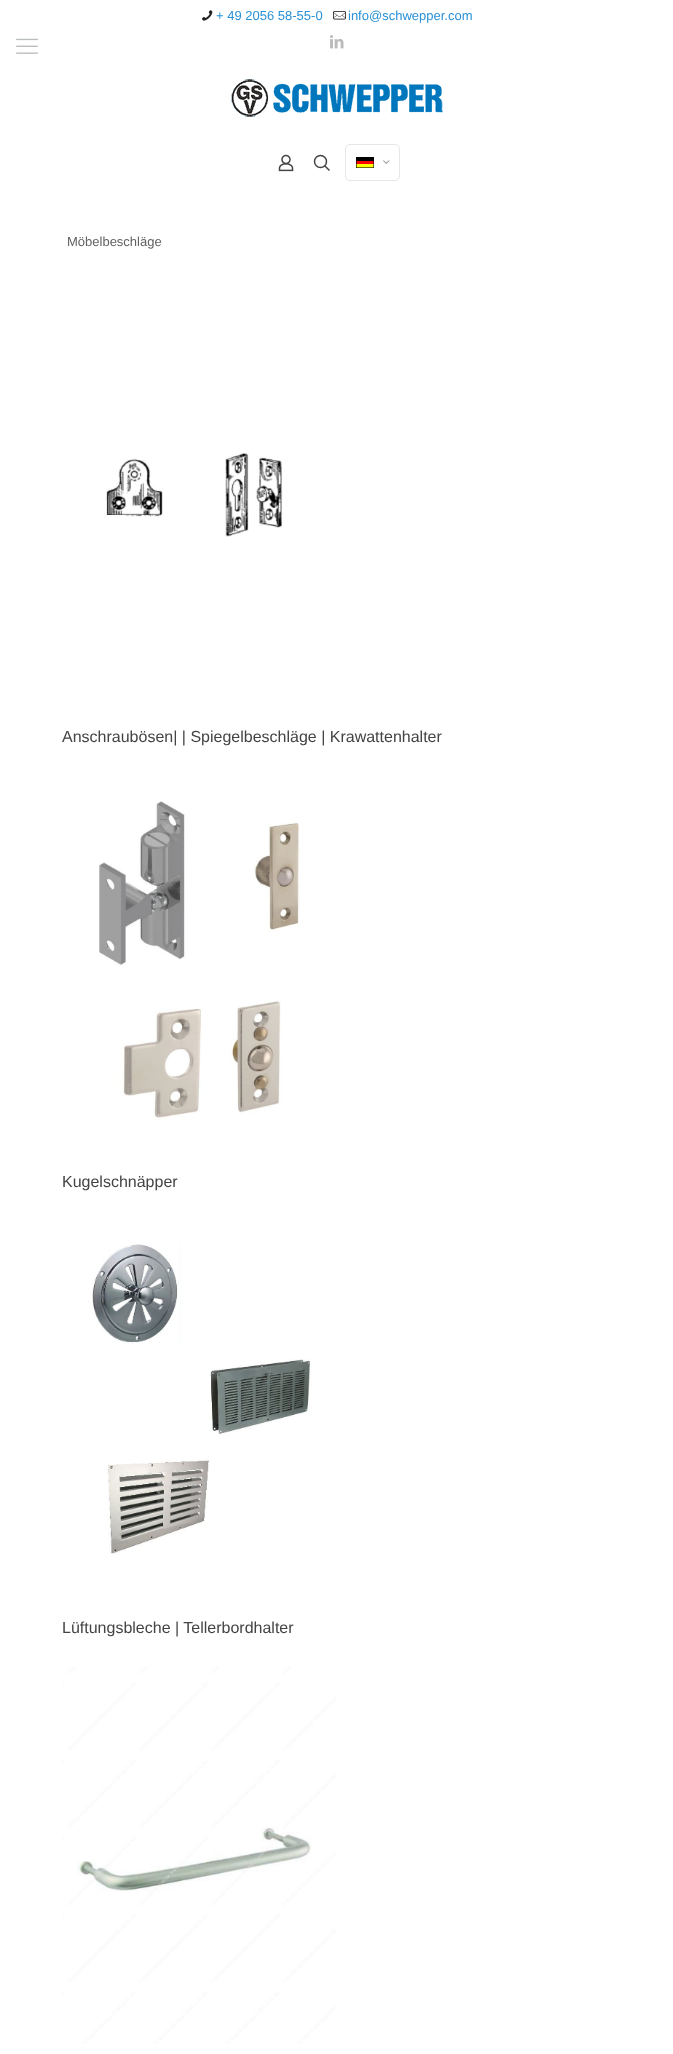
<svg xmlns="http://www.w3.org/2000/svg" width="673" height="2054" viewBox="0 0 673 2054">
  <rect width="100%" height="100%" fill="rgb(255,255,255)"/>
  <image x="202" y="10" width="11" height="11" href="pic1.png"/>
  <text x="216" y="20" font-family="Liberation Sans" font-size="13" fill="rgb(41,145,214)">+ 49 2056 58-55-0</text>
  <image x="333" y="11" width="13" height="9" href="pic2.png"/>
  <text x="348" y="20" font-family="Liberation Sans" font-size="13" fill="rgb(41,145,214)">info@schwepper.com</text>
  <image x="330" y="35" width="14" height="14" href="pic3.png"/>
  <image x="16" y="38" width="22" height="16" href="pic4.png"/>
  <image x="231" y="79" width="212" height="38" href="pic5.png"/>
  <image x="278" y="154" width="16" height="18" href="pic6.png"/>
  <circle cx="320.5" cy="161.5" r="6" fill="none" stroke="rgb(68,68,68)" stroke-width="1.5"/>
  <path d="M324.5 165.5L329.5 170.5" fill="none" stroke="rgb(68,68,68)" stroke-width="1.5"/>
  <rect x="345.5" y="144.5" width="54" height="36" rx="4.5" fill="none" stroke="rgb(230,230,230)"/>
  <image x="356" y="157" width="18" height="11" href="pic7.png"/>
  <image x="383" y="160" width="7" height="4" href="pic8.png"/>
  <text x="67" y="246" font-family="Liberation Sans" font-size="13" fill="rgb(98,98,98)">Möbelbeschläge</text>
  <image x="106" y="453" width="177" height="84" href="pic9.png"/>
  <text x="62" y="742" font-family="Liberation Sans" font-size="16" fill="rgb(68,68,68)">Anschraubösen| | Spiegelbeschläge | Krawattenhalter</text>
  <image x="99" y="801" width="201" height="319" href="pic10.png"/>
  <text x="62" y="1187" font-family="Liberation Sans" font-size="16" fill="rgb(68,68,68)">Kugelschnäpper</text>
  <image x="92" y="1244" width="220" height="311" href="pic11.png"/>
  <text x="62" y="1633" font-family="Liberation Sans" font-size="16" fill="rgb(68,68,68)">Lüftungsbleche | Tellerbordhalter</text>
  <image x="62" y="1667" width="275" height="377" href="pic12.png"/>
</svg>
